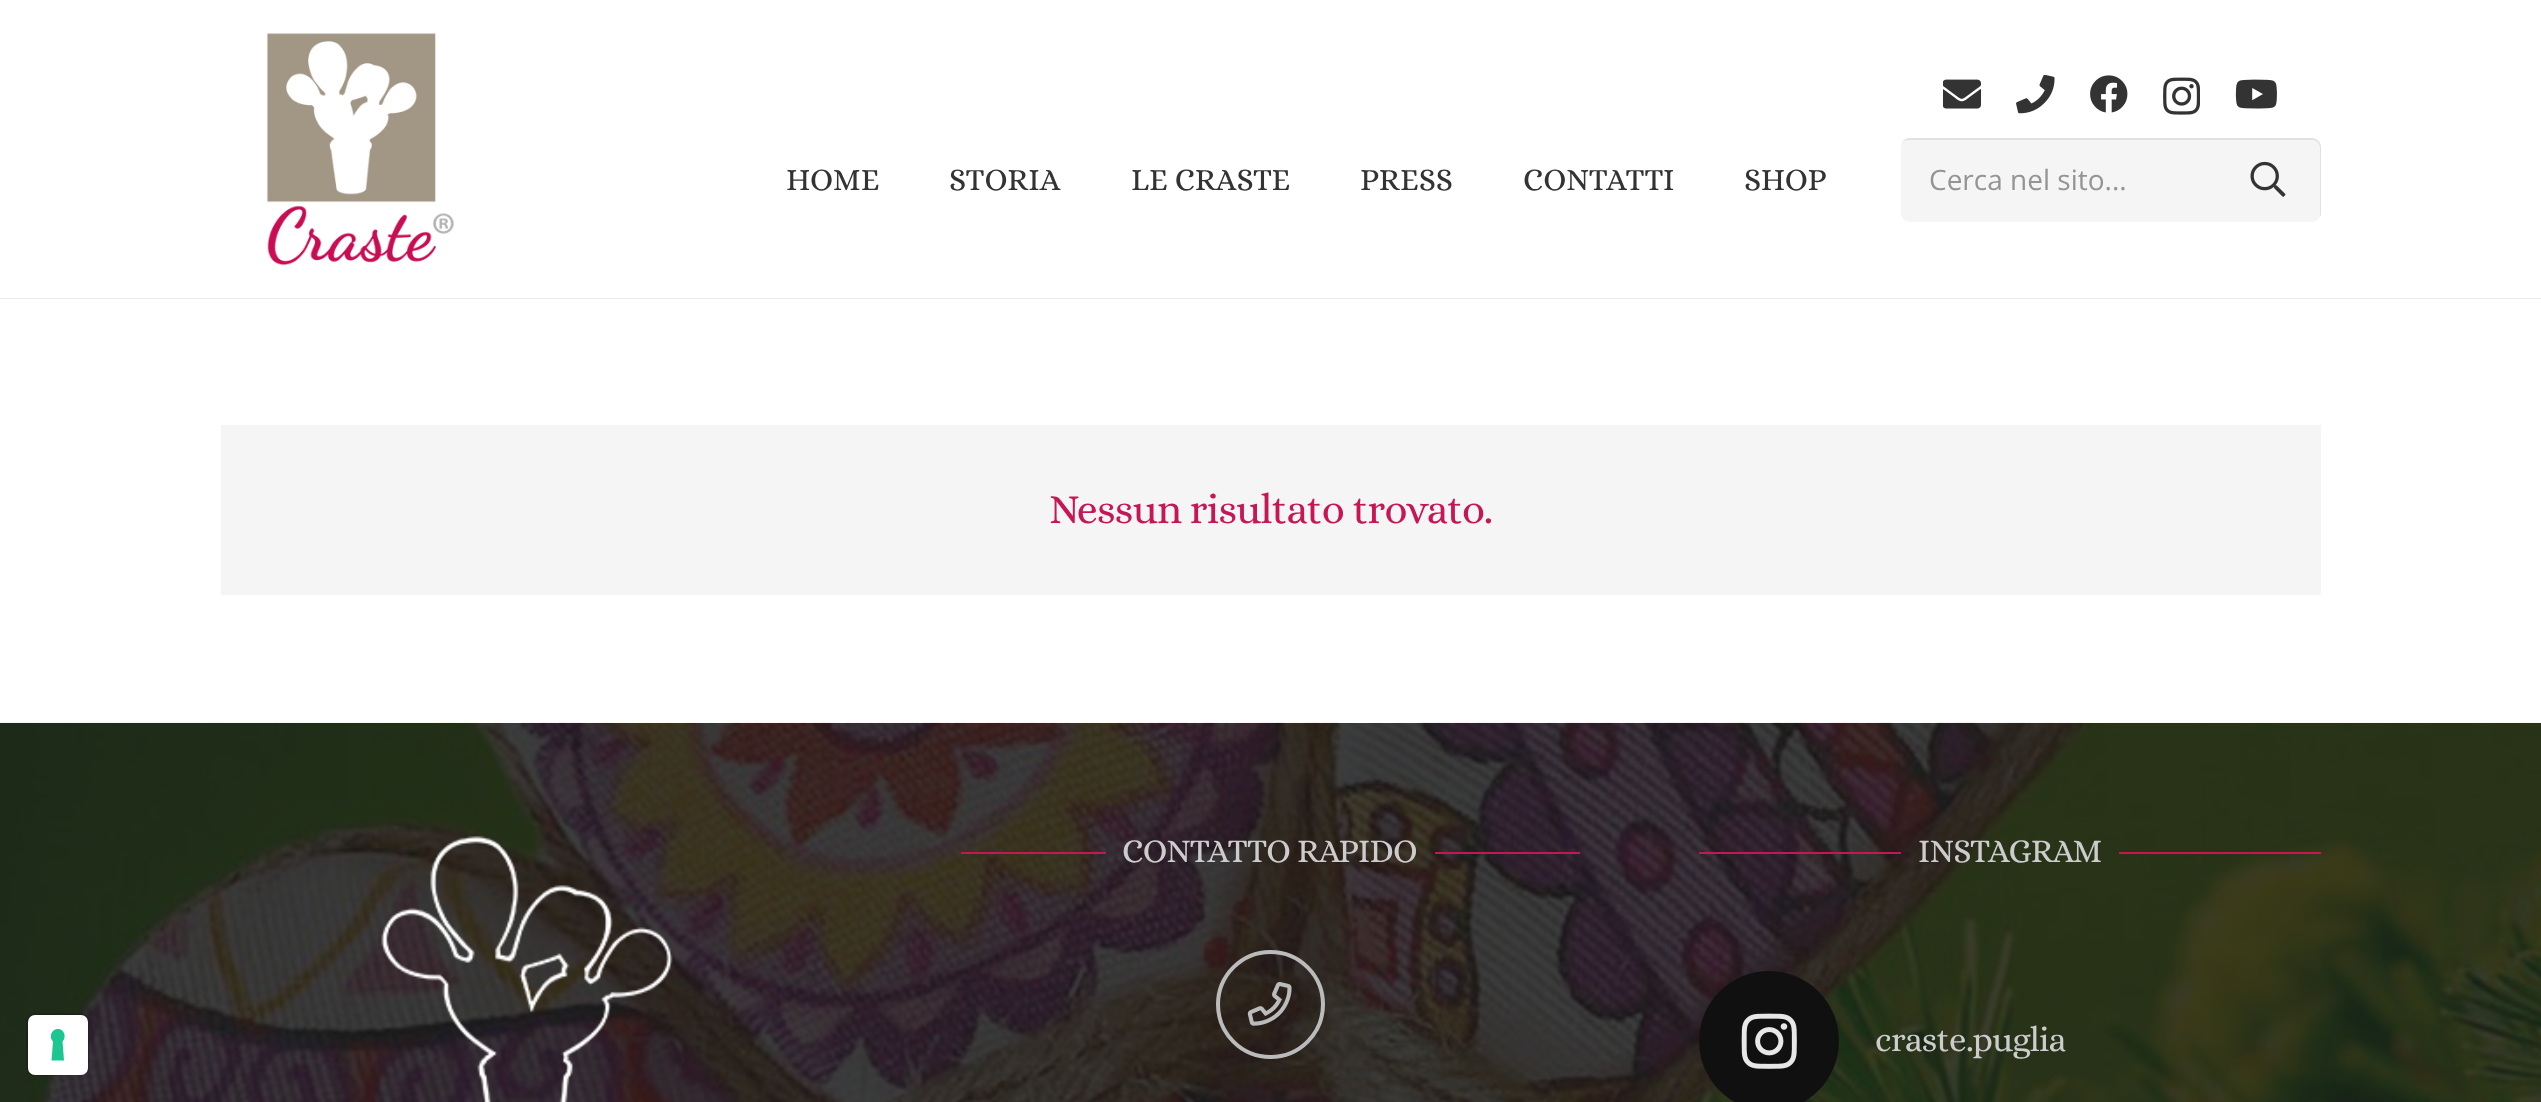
<svg xmlns="http://www.w3.org/2000/svg" width="2541" height="1102" viewBox="0 0 2541 1102">
  <rect width="100%" height="100%" fill="rgb(255,255,255)"/>
  <rect x="0" y="298" width="2541" height="1" fill="rgb(235,235,235)"/>
  <image x="266" y="33" width="188" height="233" href="pic1.png"/>
  <g font-family="Alice" font-size="31.5" fill="rgb(51,51,51)">
    <text x="786" y="190">HOME</text>
    <text x="949" y="190">STORIA</text>
    <text x="1131" y="190">LE CRASTE</text>
    <text x="1360" y="190">PRESS</text>
    <text x="1523" y="190">CONTATTI</text>
    <text x="1744" y="190">SHOP</text>
  </g>
  <image x="1943" y="79" width="38" height="30" href="pic2.png"/>
  <image x="2016" y="75" width="39" height="39" href="pic3.png"/>
  <image x="2090" y="75" width="38" height="38" href="pic4.png"/>
  <image x="2163" y="77" width="37" height="38" href="pic5.png"/>
  <image x="2235" y="79" width="42" height="30" href="pic6.png"/>
  <rect x="1901" y="138" width="420" height="84" rx="9" fill="rgb(245,245,245)"/>
  <path d="M1909 140H2312C2317 140 2320 144 2320 148V217C2321 216 2321 215 2321 213V147C2321 142 2317 138 2312 138H1910C1906 138 1903 140 1902 143C1903 141 1906 140 1909 140Z" fill="rgba(0,0,0,0.08)"/>
  <text x="1929" y="190" font-family="Open Sans" font-size="28" fill="rgb(148,148,148)">Cerca nel sito...</text>
  <image x="2250" y="161" width="36" height="36" href="pic7.png"/>
  <rect x="221" y="425" width="2100" height="170" fill="rgb(245,245,245)"/>
  <text x="1049" y="523" font-family="Alice" font-size="42" letter-spacing="-0.8" fill="rgb(199,22,85)">Nessun risultato trovato.</text>
  <image x="0" y="722" width="2541" height="380" href="pic8.png"/>
  <rect x="27" y="1014" width="61" height="61" rx="8" fill="none" stroke="rgba(0,0,0,0.15)" stroke-width="2"/>
  <rect x="28" y="1015" width="60" height="60" rx="7" fill="rgb(255,255,255)"/>
  <path d="M58 1029C64 1029 67 1037 62.5 1041.5L64 1060.5H51.5L53 1041.5C48.5 1037 51.5 1029 58 1029Z" fill="rgb(28,198,145)" fill-rule="evenodd"/>
  <image x="381" y="836" width="292" height="266" href="pic9.png"/>
  <rect x="961" y="852" width="145" height="2" fill="rgb(199,22,85)"/>
  <text x="1122" y="862" font-family="Alice" font-size="33.5" letter-spacing="-0.7" fill="rgb(204,204,204)">CONTATTO RAPIDO</text>
  <rect x="1435" y="852" width="145" height="2" fill="rgb(199,22,85)"/>
  <circle cx="1270.5" cy="1004.5" r="52.5" fill="none" stroke="rgb(187,187,187)" stroke-width="4"/>
  <image x="1247" y="982" width="45" height="44" href="pic10.png"/>
  <rect x="1699" y="852" width="202" height="2" fill="rgb(199,22,85)"/>
  <text x="1918" y="862" font-family="Alice" font-size="33.5" letter-spacing="-0.7" fill="rgb(204,204,204)">INSTAGRAM</text>
  <rect x="2119" y="852" width="202" height="2" fill="rgb(199,22,85)"/>
  <circle cx="1769" cy="1041" r="70" fill="rgb(51,51,51)"/>
  <circle cx="1769" cy="1041" r="70" fill="rgba(0,0,0,0.68)"/>
  <image x="1741" y="1013" width="56" height="56" href="pic11.png"/>
  <text x="1875" y="1051" font-family="Alice" font-size="35" letter-spacing="-0.75" fill="rgb(204,204,204)">craste.puglia</text>
</svg>
